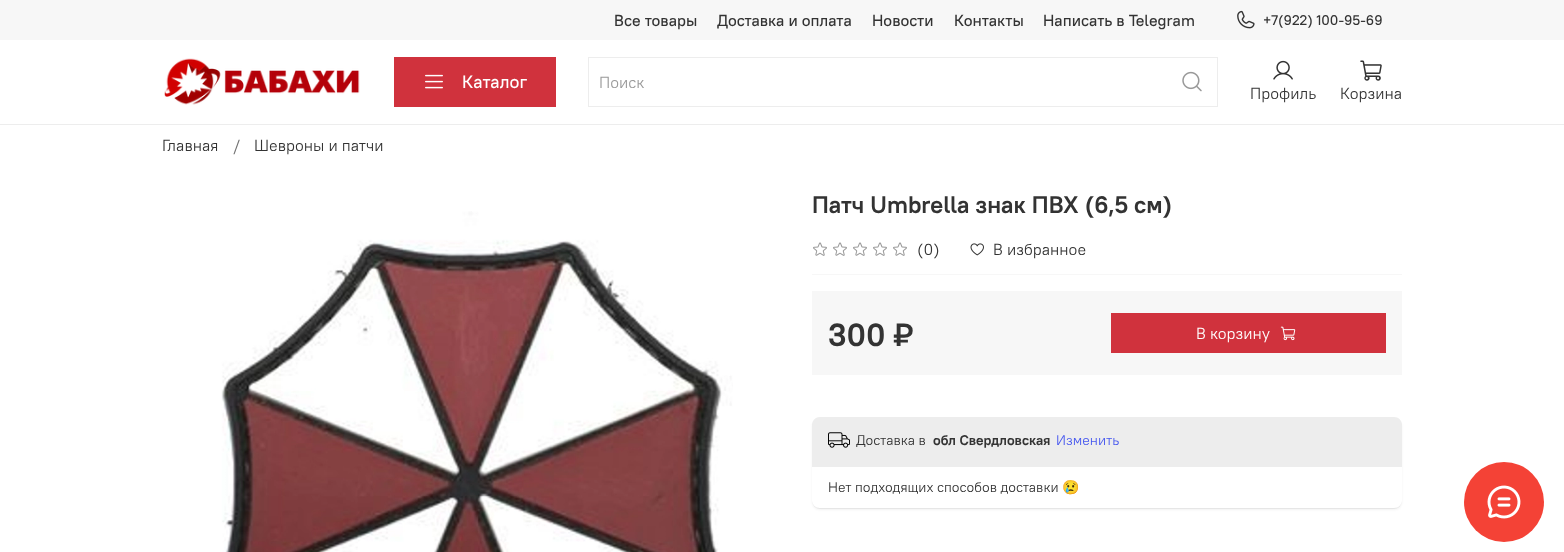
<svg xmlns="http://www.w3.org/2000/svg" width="1564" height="552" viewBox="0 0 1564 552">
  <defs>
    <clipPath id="clip1"><path d="M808 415H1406V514H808ZM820 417H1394C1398.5 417 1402 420.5 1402 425V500C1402 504.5 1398.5 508 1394 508H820C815.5 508 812 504.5 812 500V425C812 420.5 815.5 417 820 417Z" clip-rule="evenodd"/></clipPath>
    <clipPath id="clip2"><path d="M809 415H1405V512H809ZM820 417H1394C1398.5 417 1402 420.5 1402 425V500C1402 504.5 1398.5 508 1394 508H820C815.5 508 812 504.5 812 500V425C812 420.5 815.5 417 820 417Z" clip-rule="evenodd"/></clipPath>
  </defs>
  <rect width="100%" height="100%" fill="rgb(255,255,255)"/>
  <rect x="0" y="0" width="1564" height="40" fill="rgb(247,247,247)"/>
  <g font-family="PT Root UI" font-size="16" font-weight="500" fill="rgb(51,51,51)">
    <text x="614" y="26">Все товары</text>
    <text x="717" y="26">Доставка и оплата</text>
    <text x="872" y="26">Новости</text>
    <text x="954" y="26">Контакты</text>
    <text x="1043" y="26">Написать в Telegram</text>
  </g>
  <image x="1237" y="10" width="18" height="19" href="pic1.png"/>
  <text x="1263" y="25" font-family="PT Root UI" font-size="14" font-weight="500" fill="rgb(51,51,51)">+7(922) 100-95-69</text>
  <rect x="0" y="124" width="1564" height="1" fill="rgb(237,237,237)"/>
  <image x="164" y="58" width="196" height="47" href="pic2.png"/>
  <rect x="394" y="57" width="162" height="50" fill="rgb(208,50,61)"/>
  <image x="425" y="74" width="18" height="15" href="pic3.png"/>
  <text x="462" y="88" font-family="PT Root UI" font-size="18" font-weight="500" fill="rgb(255,255,255)">Каталог</text>
  <rect x="588" y="57" width="630" height="1" fill="rgb(237,237,237)"/>
  <rect x="588" y="106" width="580" height="1" fill="rgb(237,237,237)"/>
  <rect x="588" y="57" width="1" height="50" fill="rgb(237,237,237)"/>
  <text x="599" y="88" font-family="PT Root UI" font-size="16" fill="rgb(153,153,153)">Поиск</text>
  <rect x="1217" y="57" width="1" height="50" fill="rgb(237,237,237)"/>
  <rect x="1168" y="106" width="50" height="1" fill="rgb(237,237,237)"/>
  <image x="1182" y="71" width="20" height="21" href="pic4.png"/>
  <image x="1273" y="60" width="20" height="20" href="pic5.png"/>
  <text x="1250" y="99" font-family="PT Root UI" font-size="16" fill="rgb(51,51,51)">Профиль</text>
  <image x="1360" y="60" width="22" height="21" href="pic6.png"/>
  <g font-family="PT Root UI" font-size="16" fill="rgb(51,51,51)">
    <text x="1340" y="99">Корзина</text>
    <text x="162" y="151">Главная</text>
  </g>
  <text x="233" y="151" font-family="PT Root UI" font-size="16" fill="rgb(112,112,112)">/</text>
  <text x="254" y="151" font-family="PT Root UI" font-size="16" fill="rgb(51,51,51)">Шевроны и патчи</text>
  <text x="812" y="213" font-family="PT Root UI" font-size="24" font-weight="bold" fill="rgb(51,51,51)">Патч Umbrella знак ПВХ (6,5 см)</text>
  <image x="221" y="211" width="512" height="341" href="pic7.png"/>
  <rect x="812" y="274" width="590" height="1" fill="rgb(247,247,247)"/>
  <image x="813" y="242" width="14" height="14" href="pic8.png"/>
  <image x="833" y="242" width="14" height="14" href="pic8.png"/>
  <image x="853" y="242" width="14" height="14" href="pic8.png"/>
  <image x="873" y="242" width="14" height="14" href="pic8.png"/>
  <image x="893" y="242" width="14" height="14" href="pic8.png"/>
  <text x="917" y="255" font-family="PT Root UI" font-size="16" fill="rgb(51,51,51)">(0)</text>
  <image x="970" y="243" width="14" height="13" href="pic9.png"/>
  <text x="993" y="255" font-family="PT Root UI" font-size="16" fill="rgb(51,51,51)">В избранное</text>
  <rect x="812" y="291" width="590" height="84" fill="rgb(247,247,247)"/>
  <text x="828" y="346" font-family="PT Root UI" font-size="32" font-weight="bold" fill="rgb(51,51,51)">300 ₽</text>
  <rect x="1111" y="313" width="275" height="40" fill="rgb(208,50,61)"/>
  <text x="1196" y="339" font-family="PT Root UI" font-size="16" fill="rgb(255,255,255)">В корзину</text>
  <image x="1280" y="326" width="16" height="15" href="pic10.png"/>
  <g clip-path="url(#clip1)">
    <rect x="812" y="419" width="590" height="91" rx="8" fill="rgba(0,0,0,0.05)" filter="blur(1px)"/>
  </g>
  <g clip-path="url(#clip2)">
    <rect x="812" y="418" width="590" height="91" rx="8" fill="rgba(0,0,0,0.05)" filter="blur(0.5px)"/>
  </g>
  <path d="M820 417H1394C1398.5 417 1402 420.5 1402 425V467H812V425C812 420.5 815.5 417 820 417Z" fill="rgb(237,237,237)"/>
  <image x="828" y="432" width="22" height="16" href="pic11.png"/>
  <text x="856" y="445" font-family="PT Root UI" font-size="14" fill="rgb(51,51,51)">Доставка в</text>
  <text x="933" y="445" font-family="PT Root UI" font-size="14" font-weight="bold" fill="rgb(51,51,51)">обл Свердловская</text>
  <text x="1056" y="445" font-family="PT Root UI" font-size="14" fill="rgb(70,87,239)">Изменить</text>
  <text x="828" y="492" font-family="PT Root UI" font-size="14" fill="rgb(51,51,51)">Нет подходящих способов доставки</text>
  <text x="1062" y="492" font-family="Noto Color Emoji" font-size="14" fill="rgb(51,51,51)">😢</text>
  <circle cx="1504" cy="502" r="40" fill="rgb(244,66,54)"/>
  <image x="1487" y="485" width="34" height="34" href="pic12.png"/>
</svg>
